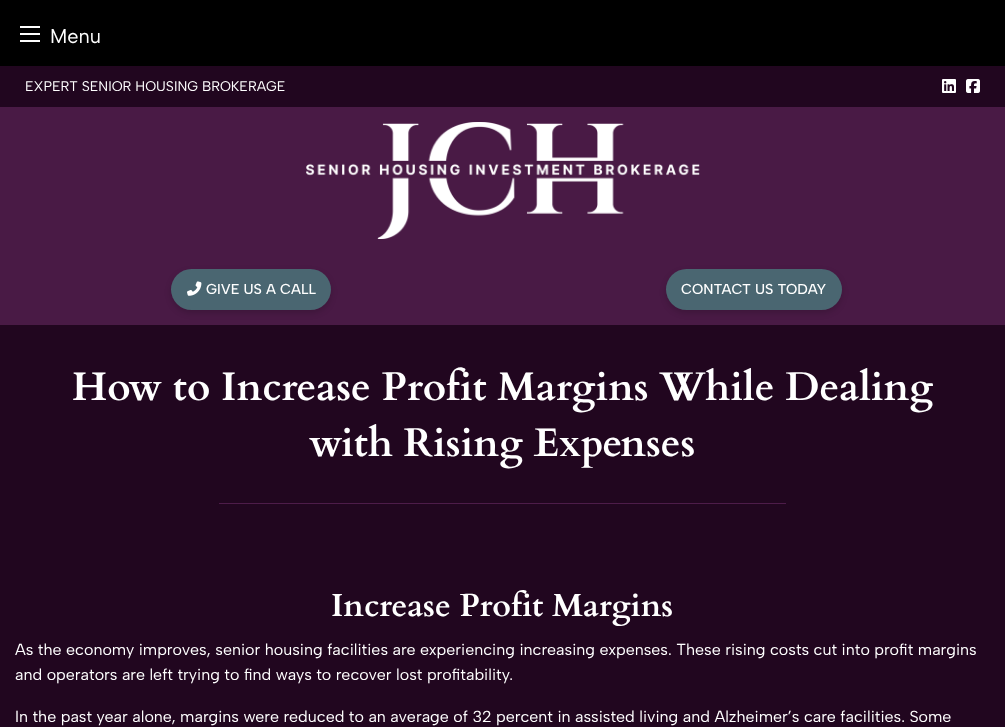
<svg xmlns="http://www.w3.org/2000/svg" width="1005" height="727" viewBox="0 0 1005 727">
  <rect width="100%" height="100%" fill="rgb(33,6,31)"/>
  <rect x="0" y="0" width="1005" height="66" fill="rgb(0,0,0)"/>
  <rect x="20" y="40" width="20" height="2" fill="rgb(254,254,254)"/>
  <rect x="20" y="33" width="20" height="2" fill="rgb(254,254,254)"/>
  <rect x="20" y="26" width="20" height="2" fill="rgb(254,254,254)"/>
  <text x="50" y="43" font-family="Albert Sans" font-size="20" fill="rgb(255,255,255)">Menu</text>
  <text x="25" y="91" font-family="Albert Sans" font-size="14" fill="rgb(255,255,255)">EXPERT SENIOR HOUSING BROKERAGE</text>
  <image x="942" y="79" width="14" height="14" href="pic1.png"/>
  <image x="966" y="79" width="14" height="14" href="pic2.png"/>
  <rect x="0" y="107" width="1005" height="218" fill="rgb(73,26,69)"/>
  <image x="306" y="122" width="394" height="117" href="pic3.png"/>
  <rect x="171" y="272" width="160" height="41" rx="20.5" fill="rgba(0,0,0,0.16)" filter="blur(3px)"/>
  <rect x="171" y="269" width="160" height="41" rx="20.5" fill="rgb(74,102,113)"/>
  <image x="187" y="281" width="15" height="15" href="pic4.png"/>
  <text x="206" y="294" font-family="Albert Sans" font-size="14.4" font-weight="500" fill="rgb(255,255,255)">GIVE US A CALL</text>
  <rect x="666" y="272" width="176" height="41" rx="20.5" fill="rgba(0,0,0,0.16)" filter="blur(3px)"/>
  <rect x="666" y="269" width="176" height="41" rx="20.5" fill="rgb(74,102,113)"/>
  <text x="681" y="294" font-family="Albert Sans" font-size="14.4" font-weight="500" fill="rgb(255,255,255)">CONTACT US TODAY</text>
  <g font-family="Cardo" font-size="40" font-weight="bold" fill="rgb(255,255,255)">
    <text x="72" y="400">How to Increase Profit Margins While Dealing</text>
    <text x="309" y="456">with Rising Expenses</text>
  </g>
  <rect x="219" y="503" width="567" height="1" fill="rgb(77,28,73)"/>
  <text x="331" y="616" font-family="Cardo" font-size="32" font-weight="bold" fill="rgb(255,255,255)">Increase Profit Margins</text>
  <g font-family="Albert Sans" font-size="16" fill="rgb(255,255,255)">
    <text>
      <tspan x="15" y="655">As the economy improves, senior housing facilities are experiencing increasing expenses. These rising costs cut into profit margins</tspan>
      <tspan x="15" y="680">and operators are left trying to find ways to recover lost profitability.</tspan>
    </text>
    <text x="15" y="722">In the past year alone, margins were reduced to an average of 32 percent in assisted living and Alzheimer’s care facilities. Some</text>
  </g>
</svg>
